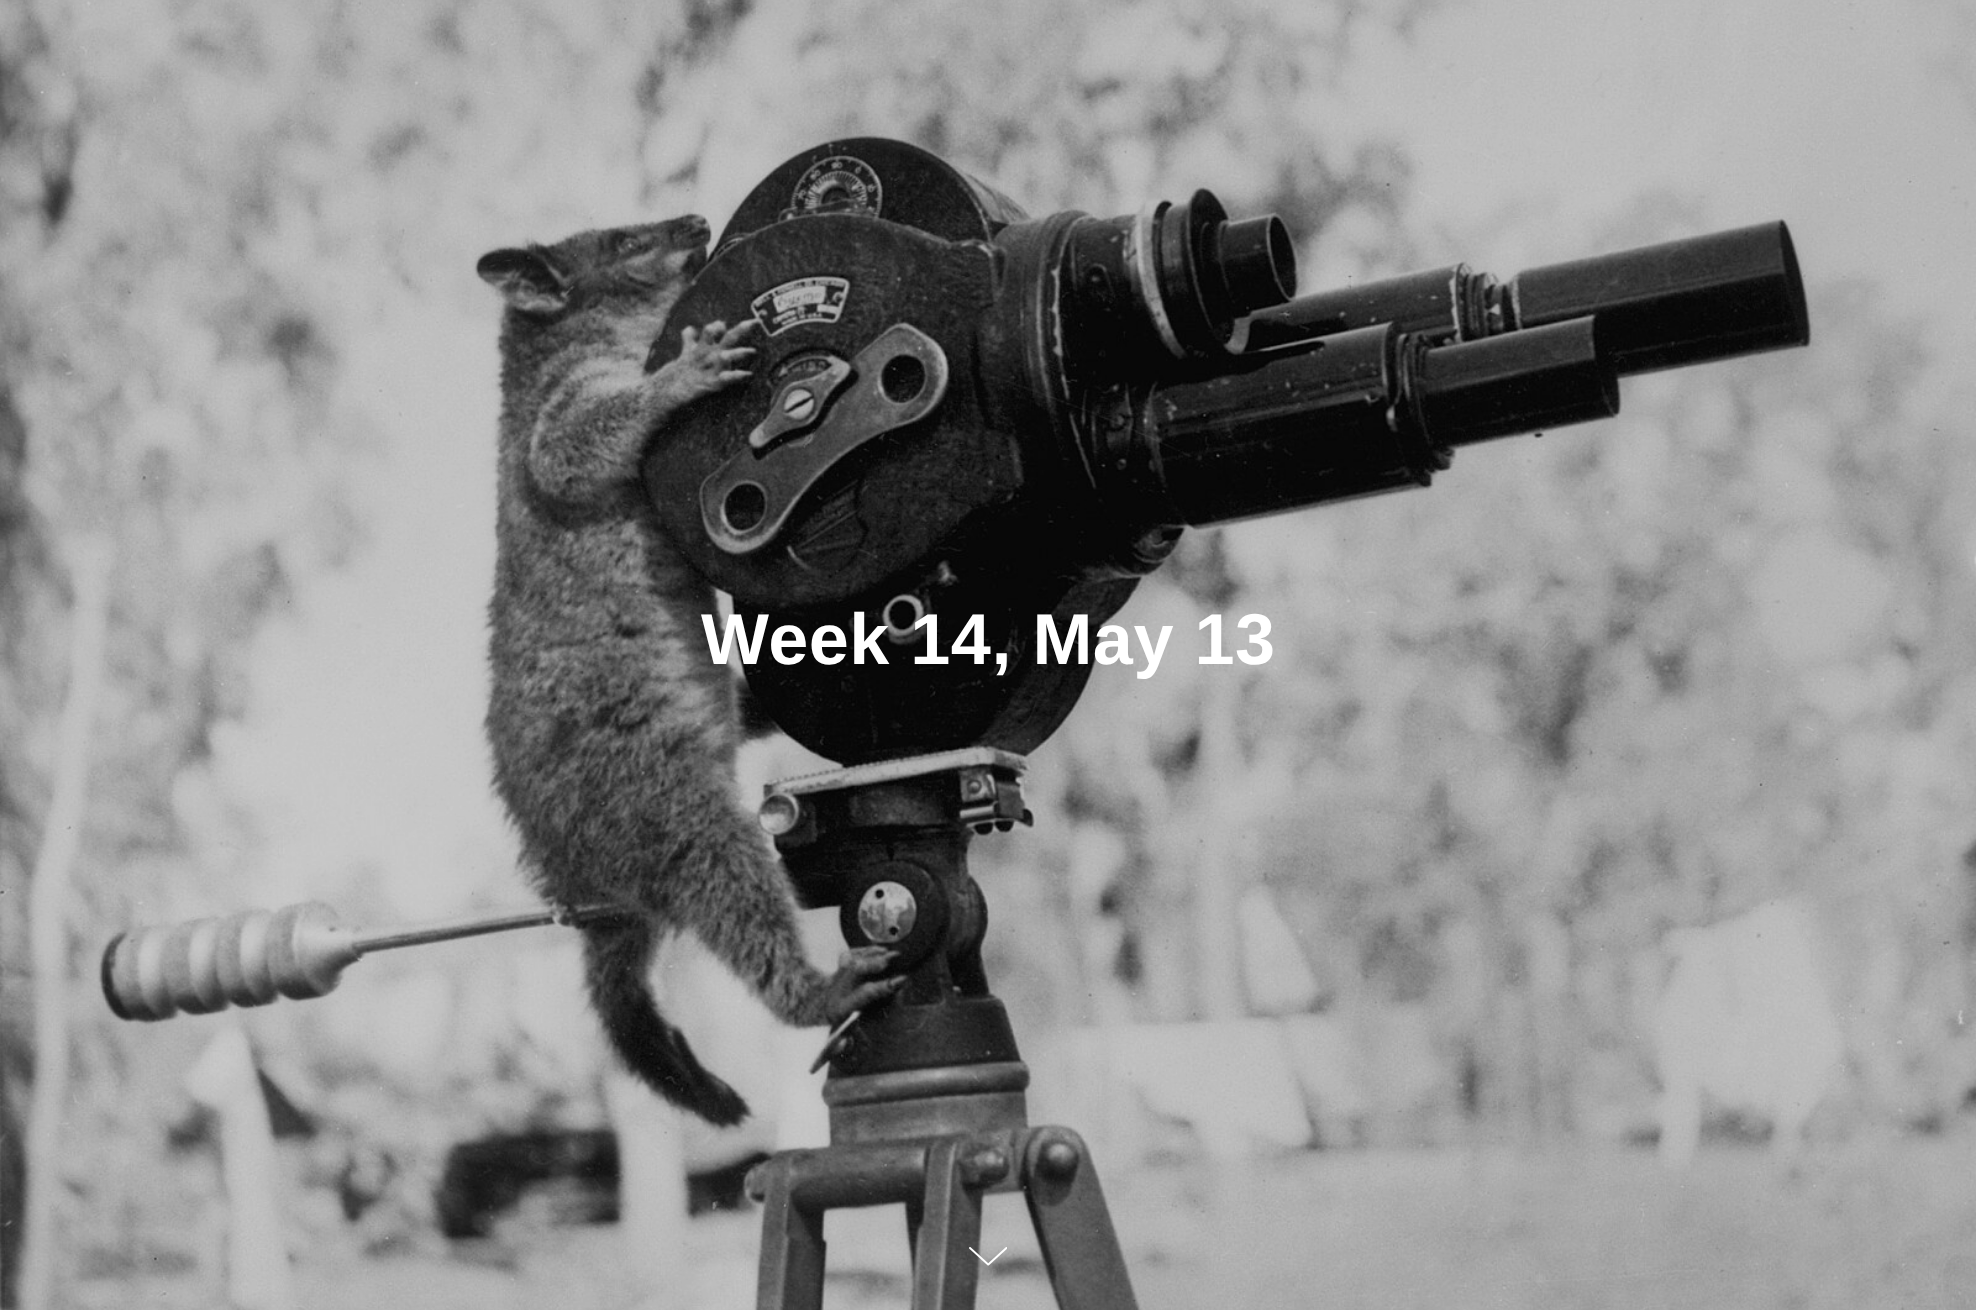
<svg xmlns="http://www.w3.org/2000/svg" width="1976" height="1310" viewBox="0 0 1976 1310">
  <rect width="100%" height="100%" fill="rgb(255,255,255)"/>
  <image x="0" y="0" width="1976" height="1310" href="pic1.png"/>
  <text x="701" y="664" font-family="Liberation Sans" font-size="72" font-weight="bold" letter-spacing="0.5" fill="rgb(255,255,255)">Week 14, May 13</text>
  <image x="969" y="1247" width="38" height="19" href="pic2.png"/>
</svg>
